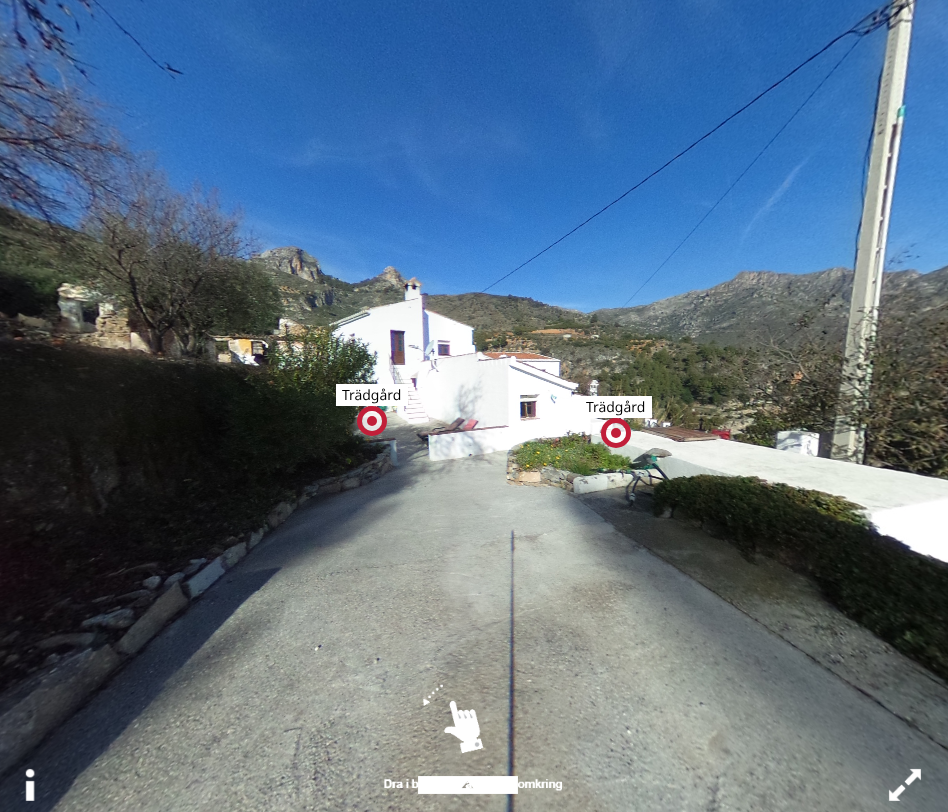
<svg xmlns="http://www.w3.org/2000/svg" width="948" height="812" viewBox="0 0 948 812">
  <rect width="100%" height="100%" fill="rgb(255,255,255)"/>
  <image x="0" y="0" width="948" height="812" href="pic1.png"/>
  <rect x="336" y="384" width="72" height="22" fill="rgb(255,255,255)"/>
  <text x="342" y="400" font-family="Open Sans" font-size="14" fill="rgb(0,0,0)">Trädgård</text>
  <circle cx="372" cy="421" r="12.5" fill="none" stroke="rgb(193,31,57)" stroke-width="5"/>
  <circle cx="372" cy="421" r="10" fill="rgba(255,255,255,0.8)"/>
  <circle cx="372" cy="421" r="5" fill="rgb(193,31,57)"/>
  <rect x="580" y="396" width="72" height="22" fill="rgb(255,255,255)"/>
  <text x="586" y="412" font-family="Open Sans" font-size="14" fill="rgb(0,0,0)">Trädgård</text>
  <circle cx="616" cy="433" r="12.5" fill="none" stroke="rgb(193,31,57)" stroke-width="5"/>
  <circle cx="616" cy="433" r="10" fill="rgba(255,255,255,0.8)"/>
  <circle cx="616" cy="433" r="5" fill="rgb(193,31,57)"/>
  <image x="418" y="776" width="100" height="18" href="pic4.png"/>
  <image x="384" y="684" width="178" height="107" href="pic2.png"/>
  <image x="25" y="768" width="10" height="33" href="pic3.png"/>
  <image x="888" y="768" width="33" height="33" href="pic5.png"/>
</svg>
